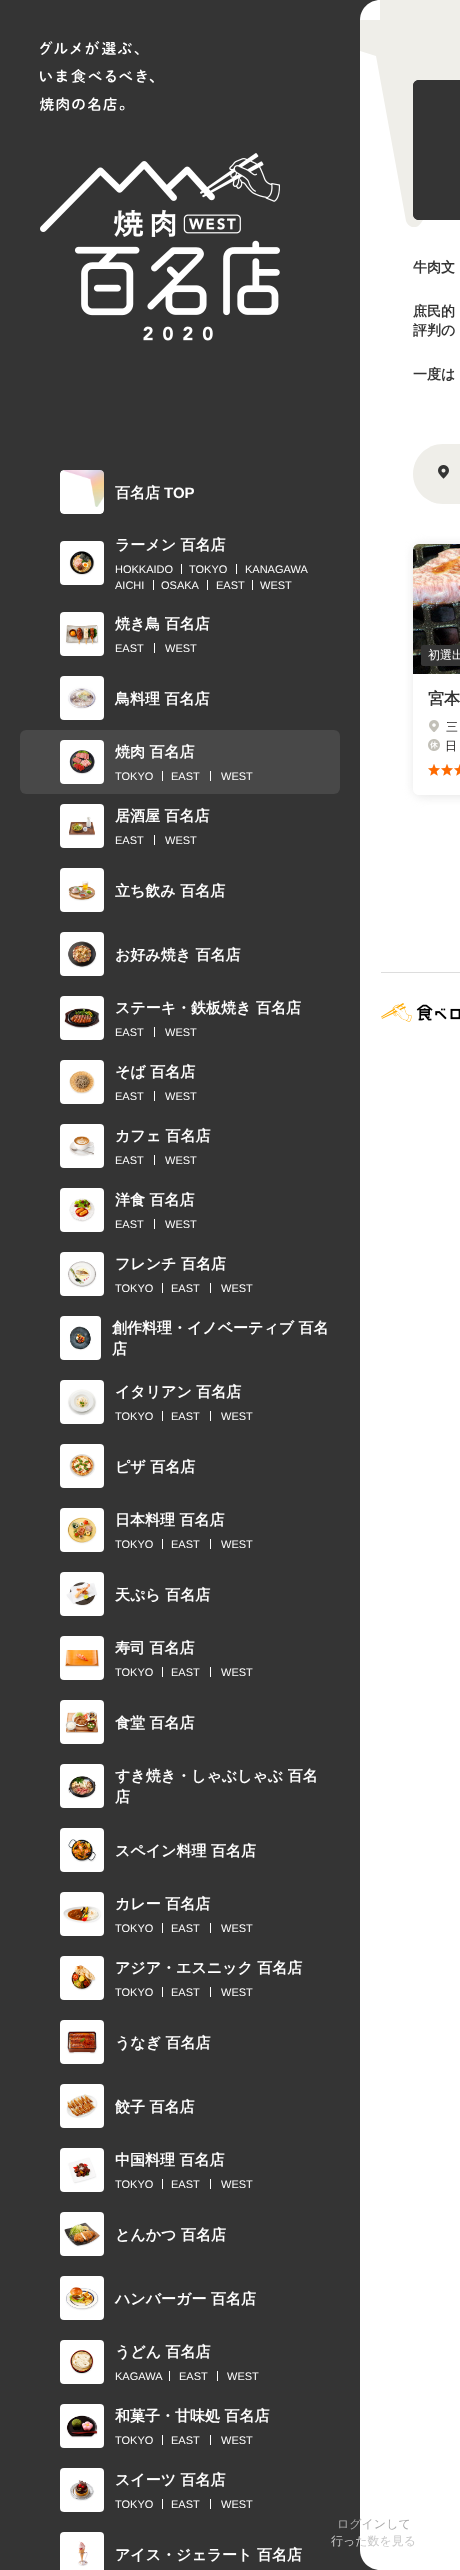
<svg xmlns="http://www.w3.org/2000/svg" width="460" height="2570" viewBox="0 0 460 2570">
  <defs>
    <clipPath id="clip1"><rect x="214" y="0" width="246" height="227"/></clipPath>
  </defs>
  <rect width="100%" height="100%" fill="rgb(255,255,255)"/>
  <g clip-path="url(#clip1)">
    <path d="M220 7L376 56L406 221C407 224 409 226 412 227C416 228 419 226 421 223L460 163V0H214C214 3 217 6 220 7Z" fill="rgb(239,238,233)"/>
  </g>
  <rect x="0" y="0" width="360" height="2570" fill="rgb(52,52,52)"/>
  <image x="40" y="41" width="114" height="70" href="pic1.png"/>
  <image x="40" y="153" width="240" height="188" href="pic2.png"/>
  <image x="60" y="470" width="44" height="44" href="pic3.png"/>
  <text x="115" y="498" font-family="WenQuanYi Zen Hei" font-size="15" font-weight="bold" fill="rgb(255,255,255)">百名店</text>
  <text x="164" y="498" font-family="Liberation Sans" font-size="15" font-weight="bold" fill="rgb(255,255,255)">TOP</text>
  <image x="60" y="541" width="44" height="44" href="pic4.png"/>
  <text x="115" y="550" font-family="WenQuanYi Zen Hei" font-size="15" font-weight="bold" fill="rgb(255,255,255)">ラーメン 百名店</text>
  <text x="115" y="573" font-family="Liberation Sans" font-size="11" fill="rgb(255,255,255)">HOKKAIDO</text>
  <rect x="236" y="564" width="1" height="10" fill="rgb(255,255,255)"/>
  <rect x="181" y="564" width="1" height="10" fill="rgb(255,255,255)"/>
  <g font-family="Liberation Sans" font-size="11" fill="rgb(255,255,255)">
    <text x="189" y="573">TOKYO</text>
    <text x="245" y="573">KANAGAWA</text>
    <text x="115" y="589">AICHI</text>
  </g>
  <rect x="153" y="580" width="1" height="10" fill="rgb(255,255,255)"/>
  <text x="161" y="589" font-family="Liberation Sans" font-size="11" fill="rgb(255,255,255)">OSAKA</text>
  <rect x="207" y="580" width="1" height="10" fill="rgb(255,255,255)"/>
  <text x="216" y="589" font-family="Liberation Sans" font-size="11" fill="rgb(255,255,255)">EAST</text>
  <rect x="252" y="580" width="1" height="10" fill="rgb(255,255,255)"/>
  <text x="260" y="589" font-family="Liberation Sans" font-size="11" fill="rgb(255,255,255)">WEST</text>
  <image x="60" y="612" width="44" height="44" href="pic5.png"/>
  <text x="115" y="629" font-family="WenQuanYi Zen Hei" font-size="15" font-weight="bold" fill="rgb(255,255,255)">焼き鳥 百名店</text>
  <text x="115" y="652" font-family="Liberation Sans" font-size="11" fill="rgb(255,255,255)">EAST</text>
  <rect x="154" y="643" width="1" height="10" fill="rgb(255,255,255)"/>
  <text x="165" y="652" font-family="Liberation Sans" font-size="11" fill="rgb(255,255,255)">WEST</text>
  <image x="60" y="676" width="44" height="44" href="pic6.png"/>
  <text x="115" y="704" font-family="WenQuanYi Zen Hei" font-size="15" font-weight="bold" fill="rgb(255,255,255)">鳥料理 百名店</text>
  <rect x="20" y="730" width="320" height="64" rx="6" fill="rgb(72,72,72)"/>
  <image x="60" y="740" width="44" height="44" href="pic7.png"/>
  <text x="115" y="757" font-family="WenQuanYi Zen Hei" font-size="15" font-weight="bold" fill="rgb(255,255,255)">焼肉 百名店</text>
  <text x="115" y="780" font-family="Liberation Sans" font-size="11" fill="rgb(255,255,255)">TOKYO</text>
  <rect x="210" y="771" width="1" height="10" fill="rgb(255,255,255)"/>
  <rect x="162" y="771" width="1" height="10" fill="rgb(255,255,255)"/>
  <g font-family="Liberation Sans" font-size="11" fill="rgb(255,255,255)">
    <text x="171" y="780">EAST</text>
    <text x="221" y="780">WEST</text>
  </g>
  <image x="60" y="804" width="44" height="44" href="pic8.png"/>
  <text x="115" y="821" font-family="WenQuanYi Zen Hei" font-size="15" font-weight="bold" fill="rgb(255,255,255)">居酒屋 百名店</text>
  <text x="115" y="844" font-family="Liberation Sans" font-size="11" fill="rgb(255,255,255)">EAST</text>
  <rect x="154" y="835" width="1" height="10" fill="rgb(255,255,255)"/>
  <text x="165" y="844" font-family="Liberation Sans" font-size="11" fill="rgb(255,255,255)">WEST</text>
  <image x="60" y="868" width="44" height="44" href="pic9.png"/>
  <text x="115" y="896" font-family="WenQuanYi Zen Hei" font-size="15" font-weight="bold" fill="rgb(255,255,255)">立ち飲み 百名店</text>
  <image x="60" y="932" width="44" height="44" href="pic10.png"/>
  <text x="115" y="960" font-family="WenQuanYi Zen Hei" font-size="15" font-weight="bold" fill="rgb(255,255,255)">お好み焼き 百名店</text>
  <image x="60" y="996" width="44" height="44" href="pic11.png"/>
  <text x="115" y="1013" font-family="WenQuanYi Zen Hei" font-size="15" font-weight="bold" fill="rgb(255,255,255)">ステーキ・鉄板焼き 百名店</text>
  <text x="115" y="1036" font-family="Liberation Sans" font-size="11" fill="rgb(255,255,255)">EAST</text>
  <rect x="154" y="1027" width="1" height="10" fill="rgb(255,255,255)"/>
  <text x="165" y="1036" font-family="Liberation Sans" font-size="11" fill="rgb(255,255,255)">WEST</text>
  <image x="60" y="1060" width="44" height="44" href="pic12.png"/>
  <text x="115" y="1077" font-family="WenQuanYi Zen Hei" font-size="15" font-weight="bold" fill="rgb(255,255,255)">そば 百名店</text>
  <text x="115" y="1100" font-family="Liberation Sans" font-size="11" fill="rgb(255,255,255)">EAST</text>
  <rect x="154" y="1091" width="1" height="10" fill="rgb(255,255,255)"/>
  <text x="165" y="1100" font-family="Liberation Sans" font-size="11" fill="rgb(255,255,255)">WEST</text>
  <image x="60" y="1124" width="44" height="44" href="pic13.png"/>
  <text x="115" y="1141" font-family="WenQuanYi Zen Hei" font-size="15" font-weight="bold" fill="rgb(255,255,255)">カフェ 百名店</text>
  <text x="115" y="1164" font-family="Liberation Sans" font-size="11" fill="rgb(255,255,255)">EAST</text>
  <rect x="154" y="1155" width="1" height="10" fill="rgb(255,255,255)"/>
  <text x="165" y="1164" font-family="Liberation Sans" font-size="11" fill="rgb(255,255,255)">WEST</text>
  <image x="60" y="1188" width="44" height="44" href="pic14.png"/>
  <text x="115" y="1205" font-family="WenQuanYi Zen Hei" font-size="15" font-weight="bold" fill="rgb(255,255,255)">洋食 百名店</text>
  <text x="115" y="1228" font-family="Liberation Sans" font-size="11" fill="rgb(255,255,255)">EAST</text>
  <rect x="154" y="1219" width="1" height="10" fill="rgb(255,255,255)"/>
  <text x="165" y="1228" font-family="Liberation Sans" font-size="11" fill="rgb(255,255,255)">WEST</text>
  <image x="60" y="1252" width="44" height="44" href="pic15.png"/>
  <text x="115" y="1269" font-family="WenQuanYi Zen Hei" font-size="15" font-weight="bold" fill="rgb(255,255,255)">フレンチ 百名店</text>
  <text x="115" y="1292" font-family="Liberation Sans" font-size="11" fill="rgb(255,255,255)">TOKYO</text>
  <rect x="210" y="1283" width="1" height="10" fill="rgb(255,255,255)"/>
  <rect x="162" y="1283" width="1" height="10" fill="rgb(255,255,255)"/>
  <g font-family="Liberation Sans" font-size="11" fill="rgb(255,255,255)">
    <text x="171" y="1292">EAST</text>
    <text x="221" y="1292">WEST</text>
  </g>
  <image x="60" y="1316" width="41" height="44" href="pic16.png"/>
  <g font-family="WenQuanYi Zen Hei" font-size="15" font-weight="bold" fill="rgb(255,255,255)">
    <text>
      <tspan x="112" y="1333">創作料理・イノベーティブ 百名</tspan>
      <tspan x="112" y="1354">店</tspan>
    </text>
  </g>
  <image x="60" y="1380" width="44" height="44" href="pic17.png"/>
  <text x="115" y="1397" font-family="WenQuanYi Zen Hei" font-size="15" font-weight="bold" fill="rgb(255,255,255)">イタリアン 百名店</text>
  <text x="115" y="1420" font-family="Liberation Sans" font-size="11" fill="rgb(255,255,255)">TOKYO</text>
  <rect x="210" y="1411" width="1" height="10" fill="rgb(255,255,255)"/>
  <rect x="162" y="1411" width="1" height="10" fill="rgb(255,255,255)"/>
  <g font-family="Liberation Sans" font-size="11" fill="rgb(255,255,255)">
    <text x="171" y="1420">EAST</text>
    <text x="221" y="1420">WEST</text>
  </g>
  <image x="60" y="1444" width="44" height="44" href="pic18.png"/>
  <text x="115" y="1472" font-family="WenQuanYi Zen Hei" font-size="15" font-weight="bold" fill="rgb(255,255,255)">ピザ 百名店</text>
  <image x="60" y="1508" width="44" height="44" href="pic19.png"/>
  <text x="115" y="1525" font-family="WenQuanYi Zen Hei" font-size="15" font-weight="bold" fill="rgb(255,255,255)">日本料理 百名店</text>
  <text x="115" y="1548" font-family="Liberation Sans" font-size="11" fill="rgb(255,255,255)">TOKYO</text>
  <rect x="210" y="1539" width="1" height="10" fill="rgb(255,255,255)"/>
  <rect x="162" y="1539" width="1" height="10" fill="rgb(255,255,255)"/>
  <g font-family="Liberation Sans" font-size="11" fill="rgb(255,255,255)">
    <text x="171" y="1548">EAST</text>
    <text x="221" y="1548">WEST</text>
  </g>
  <image x="60" y="1572" width="44" height="44" href="pic20.png"/>
  <text x="115" y="1600" font-family="WenQuanYi Zen Hei" font-size="15" font-weight="bold" fill="rgb(255,255,255)">天ぷら 百名店</text>
  <image x="60" y="1636" width="44" height="44" href="pic21.png"/>
  <text x="115" y="1653" font-family="WenQuanYi Zen Hei" font-size="15" font-weight="bold" fill="rgb(255,255,255)">寿司 百名店</text>
  <text x="115" y="1676" font-family="Liberation Sans" font-size="11" fill="rgb(255,255,255)">TOKYO</text>
  <rect x="210" y="1667" width="1" height="10" fill="rgb(255,255,255)"/>
  <rect x="162" y="1667" width="1" height="10" fill="rgb(255,255,255)"/>
  <g font-family="Liberation Sans" font-size="11" fill="rgb(255,255,255)">
    <text x="171" y="1676">EAST</text>
    <text x="221" y="1676">WEST</text>
  </g>
  <image x="60" y="1700" width="44" height="44" href="pic22.png"/>
  <text x="115" y="1728" font-family="WenQuanYi Zen Hei" font-size="15" font-weight="bold" fill="rgb(255,255,255)">食堂 百名店</text>
  <image x="60" y="1764" width="44" height="44" href="pic23.png"/>
  <g font-family="WenQuanYi Zen Hei" font-size="15" font-weight="bold" fill="rgb(255,255,255)">
    <text>
      <tspan x="115" y="1781">すき焼き・しゃぶしゃぶ 百名</tspan>
      <tspan x="115" y="1802">店</tspan>
    </text>
  </g>
  <image x="60" y="1828" width="44" height="44" href="pic24.png"/>
  <text x="115" y="1856" font-family="WenQuanYi Zen Hei" font-size="15" font-weight="bold" fill="rgb(255,255,255)">スペイン料理 百名店</text>
  <image x="60" y="1892" width="44" height="44" href="pic25.png"/>
  <text x="115" y="1909" font-family="WenQuanYi Zen Hei" font-size="15" font-weight="bold" fill="rgb(255,255,255)">カレー 百名店</text>
  <text x="115" y="1932" font-family="Liberation Sans" font-size="11" fill="rgb(255,255,255)">TOKYO</text>
  <rect x="210" y="1923" width="1" height="10" fill="rgb(255,255,255)"/>
  <rect x="162" y="1923" width="1" height="10" fill="rgb(255,255,255)"/>
  <g font-family="Liberation Sans" font-size="11" fill="rgb(255,255,255)">
    <text x="171" y="1932">EAST</text>
    <text x="221" y="1932">WEST</text>
  </g>
  <image x="60" y="1956" width="44" height="44" href="pic26.png"/>
  <text x="115" y="1973" font-family="WenQuanYi Zen Hei" font-size="15" font-weight="bold" fill="rgb(255,255,255)">アジア・エスニック 百名店</text>
  <text x="115" y="1996" font-family="Liberation Sans" font-size="11" fill="rgb(255,255,255)">TOKYO</text>
  <rect x="210" y="1987" width="1" height="10" fill="rgb(255,255,255)"/>
  <rect x="162" y="1987" width="1" height="10" fill="rgb(255,255,255)"/>
  <g font-family="Liberation Sans" font-size="11" fill="rgb(255,255,255)">
    <text x="171" y="1996">EAST</text>
    <text x="221" y="1996">WEST</text>
  </g>
  <image x="60" y="2020" width="44" height="44" href="pic27.png"/>
  <text x="115" y="2048" font-family="WenQuanYi Zen Hei" font-size="15" font-weight="bold" fill="rgb(255,255,255)">うなぎ 百名店</text>
  <image x="60" y="2084" width="44" height="44" href="pic28.png"/>
  <text x="115" y="2112" font-family="WenQuanYi Zen Hei" font-size="15" font-weight="bold" fill="rgb(255,255,255)">餃子 百名店</text>
  <image x="60" y="2148" width="44" height="44" href="pic29.png"/>
  <text x="115" y="2165" font-family="WenQuanYi Zen Hei" font-size="15" font-weight="bold" fill="rgb(255,255,255)">中国料理 百名店</text>
  <text x="115" y="2188" font-family="Liberation Sans" font-size="11" fill="rgb(255,255,255)">TOKYO</text>
  <rect x="210" y="2179" width="1" height="10" fill="rgb(255,255,255)"/>
  <rect x="162" y="2179" width="1" height="10" fill="rgb(255,255,255)"/>
  <g font-family="Liberation Sans" font-size="11" fill="rgb(255,255,255)">
    <text x="171" y="2188">EAST</text>
    <text x="221" y="2188">WEST</text>
  </g>
  <image x="60" y="2212" width="44" height="44" href="pic30.png"/>
  <text x="115" y="2240" font-family="WenQuanYi Zen Hei" font-size="15" font-weight="bold" fill="rgb(255,255,255)">とんかつ 百名店</text>
  <image x="60" y="2276" width="44" height="44" href="pic31.png"/>
  <text x="115" y="2304" font-family="WenQuanYi Zen Hei" font-size="15" font-weight="bold" fill="rgb(255,255,255)">ハンバーガー 百名店</text>
  <image x="60" y="2340" width="44" height="44" href="pic32.png"/>
  <text x="115" y="2357" font-family="WenQuanYi Zen Hei" font-size="15" font-weight="bold" fill="rgb(255,255,255)">うどん 百名店</text>
  <text x="115" y="2380" font-family="Liberation Sans" font-size="11" fill="rgb(255,255,255)">KAGAWA</text>
  <rect x="217" y="2371" width="1" height="10" fill="rgb(255,255,255)"/>
  <rect x="169" y="2371" width="1" height="10" fill="rgb(255,255,255)"/>
  <g font-family="Liberation Sans" font-size="11" fill="rgb(255,255,255)">
    <text x="179" y="2380">EAST</text>
    <text x="227" y="2380">WEST</text>
  </g>
  <image x="60" y="2404" width="44" height="44" href="pic33.png"/>
  <text x="115" y="2421" font-family="WenQuanYi Zen Hei" font-size="15" font-weight="bold" fill="rgb(255,255,255)">和菓子・甘味処 百名店</text>
  <text x="115" y="2444" font-family="Liberation Sans" font-size="11" fill="rgb(255,255,255)">TOKYO</text>
  <rect x="210" y="2435" width="1" height="10" fill="rgb(255,255,255)"/>
  <rect x="162" y="2435" width="1" height="10" fill="rgb(255,255,255)"/>
  <g font-family="Liberation Sans" font-size="11" fill="rgb(255,255,255)">
    <text x="171" y="2444">EAST</text>
    <text x="221" y="2444">WEST</text>
  </g>
  <image x="60" y="2468" width="44" height="44" href="pic34.png"/>
  <text x="115" y="2485" font-family="WenQuanYi Zen Hei" font-size="15" font-weight="bold" fill="rgb(255,255,255)">スイーツ 百名店</text>
  <text x="115" y="2508" font-family="Liberation Sans" font-size="11" fill="rgb(255,255,255)">TOKYO</text>
  <rect x="210" y="2499" width="1" height="10" fill="rgb(255,255,255)"/>
  <rect x="162" y="2499" width="1" height="10" fill="rgb(255,255,255)"/>
  <g font-family="Liberation Sans" font-size="11" fill="rgb(255,255,255)">
    <text x="171" y="2508">EAST</text>
    <text x="221" y="2508">WEST</text>
  </g>
  <image x="60" y="2532" width="44" height="38" href="pic35.png"/>
  <text x="115" y="2560" font-family="WenQuanYi Zen Hei" font-size="15" font-weight="bold" fill="rgb(255,255,255)">アイス・ジェラート 百名店</text>
  <rect x="360" y="0" width="20" height="20" fill="rgb(52,52,52)"/>
  <path d="M380 0V20H360C360 9 369 0 380 0Z" fill="rgb(255,255,255)"/>
  <path d="M419 80H460V220H419C415.5 220 413 217.5 413 214V86C413 82.5 415.5 80 419 80Z" fill="rgb(52,52,52)"/>
  <rect x="414" y="81" width="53" height="138" rx="5" fill="none" stroke="rgb(52,52,52)" stroke-width="2"/>
  <g font-family="WenQuanYi Zen Hei" font-size="14" font-weight="bold" fill="rgb(52,52,52)">
    <text x="413" y="272">牛肉文</text>
    <text>
      <tspan x="413" y="316">庶民的</tspan>
      <tspan x="413" y="335">評判の</tspan>
    </text>
    <text x="413" y="379">一度は</text>
  </g>
  <path d="M443 444H460V504H443C426.5 504 413 490.5 413 474C413 457.5 426.5 444 443 444Z" fill="rgb(239,238,233)"/>
  <image x="438" y="465" width="11" height="14" href="pic36.png"/>
  <rect x="412" y="543" width="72" height="255" rx="12" fill="rgba(216,216,216,0.5)" filter="blur(4px)"/>
  <path d="M423 544H460V795H419C415.5 795 413 792.5 413 789V554C413 548.5 417.5 544 423 544Z" fill="rgb(255,255,255)"/>
  <image x="413" y="544" width="47" height="130" href="pic37.png"/>
  <path d="M423 645H460V666H423C422 666 421 665 421 664V647C421 646 422 645 423 645Z" fill="rgb(52,52,52)"/>
  <text x="428" y="659" font-family="WenQuanYi Zen Hei" font-size="12" font-weight="500" fill="rgb(255,255,255)">初選出</text>
  <text x="428" y="704" font-family="WenQuanYi Zen Hei" font-size="16" font-weight="bold" fill="rgb(52,52,52)">宮本</text>
  <image x="429" y="720" width="10" height="12" href="pic38.png"/>
  <text x="446" y="731" font-family="WenQuanYi Zen Hei" font-size="12" font-weight="500" fill="rgb(30,28,28)">三</text>
  <image x="428" y="739" width="12" height="12" href="pic39.png"/>
  <text x="445" y="750" font-family="WenQuanYi Zen Hei" font-size="12" font-weight="500" fill="rgb(30,28,28)">日</text>
  <image x="428" y="764" width="32" height="12" href="pic40.png"/>
  <image x="428" y="764" width="32" height="12" href="pic41.png"/>
  <text x="337" y="2528" font-family="WenQuanYi Zen Hei" font-size="12" font-weight="500" fill="rgb(171,171,171)">ログインして</text>
  <text x="331" y="2545" font-family="WenQuanYi Zen Hei" font-size="12" font-weight="500" fill="rgb(200,200,200)">行った数を見る</text>
  <rect x="381" y="972" width="79" height="1" fill="rgb(221,221,221)"/>
  <image x="381" y="1003" width="79" height="19" href="pic42.png"/>
  <rect x="360" y="2550" width="20" height="20" fill="rgb(52,52,52)"/>
  <path d="M360 2550H380V2570C369 2570 360 2561 360 2550Z" fill="rgb(255,255,255)"/>
</svg>
